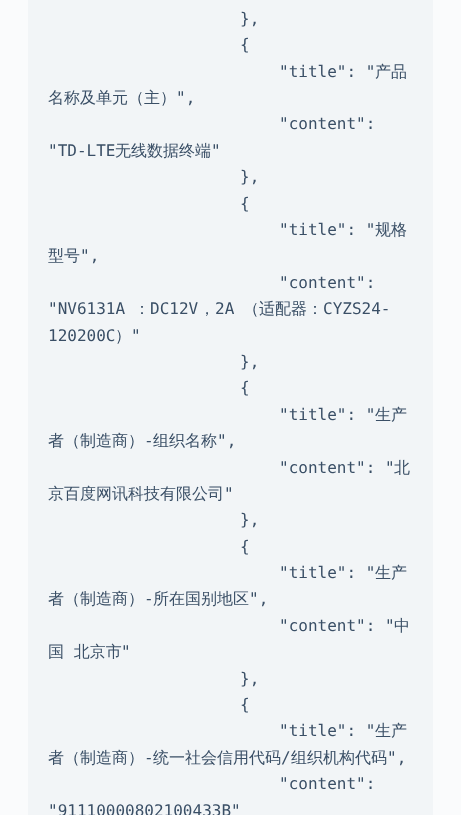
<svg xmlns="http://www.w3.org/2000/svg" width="461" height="815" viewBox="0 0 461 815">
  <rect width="100%" height="100%" fill="rgb(250,251,252)"/>
  <rect x="28" y="0" width="405" height="815" fill="rgb(242,245,247)"/>
  <g font-family="DejaVu Sans Mono" font-size="16" fill="rgb(58,79,102)">
    <text>
      <tspan x="240" y="24">},</tspan>
      <tspan x="240" y="50">{</tspan>
    </text>
    <text x="279" y="77">"title": "</text>
  </g>
  <g font-family="WenQuanYi Zen Hei" font-size="16" font-weight="500" fill="rgb(58,79,102)">
    <text x="375" y="77">产品</text>
    <text x="48" y="103">名称及单元（主）</text>
  </g>
  <g font-family="DejaVu Sans Mono" font-size="16" fill="rgb(58,79,102)">
    <text x="176" y="103">",</text>
    <text x="279" y="129">"content":</text>
    <text x="48" y="156">"TD-LTE</text>
  </g>
  <text x="115" y="156" font-family="WenQuanYi Zen Hei" font-size="16" font-weight="500" fill="rgb(58,79,102)">无线数据终端</text>
  <g font-family="DejaVu Sans Mono" font-size="16" fill="rgb(58,79,102)">
    <text x="211" y="156">"</text>
    <text>
      <tspan x="240" y="182">},</tspan>
      <tspan x="240" y="209">{</tspan>
    </text>
    <text x="279" y="235">"title": "</text>
  </g>
  <g font-family="WenQuanYi Zen Hei" font-size="16" font-weight="500" fill="rgb(58,79,102)">
    <text x="375" y="235">规格</text>
    <text x="48" y="261">型号</text>
  </g>
  <g font-family="DejaVu Sans Mono" font-size="16" fill="rgb(58,79,102)">
    <text x="80" y="261">",</text>
    <text x="279" y="288">"content":</text>
    <text x="48" y="314">"NV6131A</text>
  </g>
  <text x="134" y="314" font-family="WenQuanYi Zen Hei" font-size="16" font-weight="500" fill="rgb(58,79,102)">：</text>
  <g font-family="DejaVu Sans Mono" font-size="16" fill="rgb(58,79,102)">
    <text x="150" y="314">DC12V</text>
    <text x="215" y="314">2A</text>
  </g>
  <text x="243" y="314" font-family="WenQuanYi Zen Hei" font-size="16" font-weight="500" fill="rgb(58,79,102)">（适配器：</text>
  <text x="323" y="314" font-family="DejaVu Sans Mono" font-size="16" fill="rgb(58,79,102)">CYZS24-</text>
  <text x="199" y="314" font-family="WenQuanYi Zen Hei" font-size="16" font-weight="500" fill="rgb(58,79,102)">，</text>
  <text x="48" y="341" font-family="DejaVu Sans Mono" font-size="16" fill="rgb(58,79,102)">120200C</text>
  <text x="115" y="341" font-family="WenQuanYi Zen Hei" font-size="16" font-weight="500" fill="rgb(58,79,102)">）</text>
  <g font-family="DejaVu Sans Mono" font-size="16" fill="rgb(58,79,102)">
    <text x="131" y="341">"</text>
    <text>
      <tspan x="240" y="367">},</tspan>
      <tspan x="240" y="393">{</tspan>
    </text>
    <text x="279" y="420">"title": "</text>
  </g>
  <g font-family="WenQuanYi Zen Hei" font-size="16" font-weight="500" fill="rgb(58,79,102)">
    <text x="375" y="420">生产</text>
    <text x="48" y="446">者（制造商）</text>
  </g>
  <text x="144" y="446" font-family="DejaVu Sans Mono" font-size="16" fill="rgb(58,79,102)">-</text>
  <text x="153" y="446" font-family="WenQuanYi Zen Hei" font-size="16" font-weight="500" fill="rgb(58,79,102)">组织名称</text>
  <g font-family="DejaVu Sans Mono" font-size="16" fill="rgb(58,79,102)">
    <text x="217" y="446">",</text>
    <text x="279" y="473">"content": "</text>
  </g>
  <g font-family="WenQuanYi Zen Hei" font-size="16" font-weight="500" fill="rgb(58,79,102)">
    <text x="394" y="473">北</text>
    <text x="48" y="499">京百度网讯科技有限公司</text>
  </g>
  <g font-family="DejaVu Sans Mono" font-size="16" fill="rgb(58,79,102)">
    <text x="224" y="499">"</text>
    <text>
      <tspan x="240" y="525">},</tspan>
      <tspan x="240" y="552">{</tspan>
    </text>
    <text x="279" y="578">"title": "</text>
  </g>
  <g font-family="WenQuanYi Zen Hei" font-size="16" font-weight="500" fill="rgb(58,79,102)">
    <text x="375" y="578">生产</text>
    <text x="48" y="604">者（制造商）</text>
  </g>
  <text x="144" y="604" font-family="DejaVu Sans Mono" font-size="16" fill="rgb(58,79,102)">-</text>
  <text x="153" y="604" font-family="WenQuanYi Zen Hei" font-size="16" font-weight="500" fill="rgb(58,79,102)">所在国别地区</text>
  <g font-family="DejaVu Sans Mono" font-size="16" fill="rgb(58,79,102)">
    <text x="249" y="604">",</text>
    <text x="279" y="631">"content": "</text>
  </g>
  <g font-family="WenQuanYi Zen Hei" font-size="16" font-weight="500" fill="rgb(58,79,102)">
    <text x="394" y="631">中</text>
    <text x="48" y="657" word-spacing="5">国 北京市</text>
  </g>
  <g font-family="DejaVu Sans Mono" font-size="16" fill="rgb(58,79,102)">
    <text x="121" y="657">"</text>
    <text>
      <tspan x="240" y="684">},</tspan>
      <tspan x="240" y="710">{</tspan>
    </text>
    <text x="279" y="736">"title": "</text>
  </g>
  <g font-family="WenQuanYi Zen Hei" font-size="16" font-weight="500" fill="rgb(58,79,102)">
    <text x="375" y="736">生产</text>
    <text x="48" y="763">者（制造商）</text>
  </g>
  <text x="144" y="763" font-family="DejaVu Sans Mono" font-size="16" fill="rgb(58,79,102)">-</text>
  <text x="153" y="763" font-family="WenQuanYi Zen Hei" font-size="16" font-weight="500" fill="rgb(58,79,102)">统一社会信用代码</text>
  <text x="281" y="763" font-family="DejaVu Sans Mono" font-size="16" fill="rgb(58,79,102)">/</text>
  <text x="291" y="763" font-family="WenQuanYi Zen Hei" font-size="16" font-weight="500" fill="rgb(58,79,102)">组织机构代码</text>
  <g font-family="DejaVu Sans Mono" font-size="16" fill="rgb(58,79,102)">
    <text x="387" y="763">",</text>
    <text x="279" y="789">"content":</text>
    <text x="48" y="816">"91110000802100433B"</text>
  </g>
</svg>
